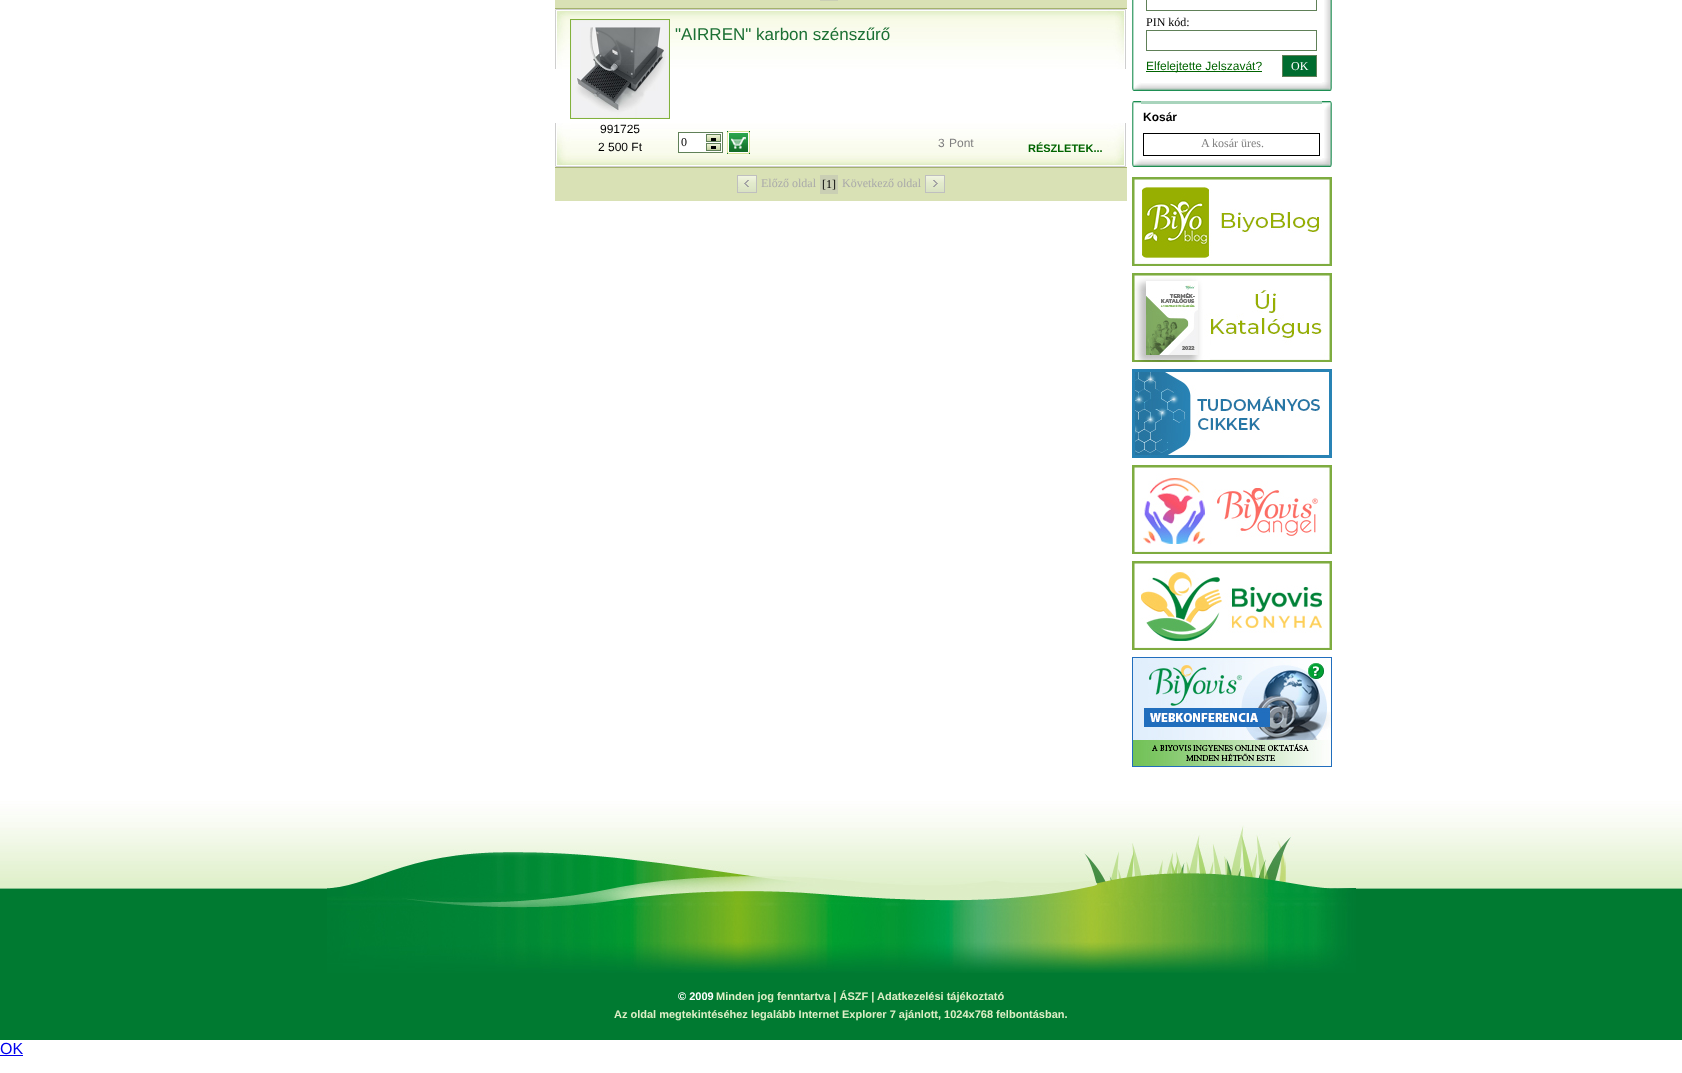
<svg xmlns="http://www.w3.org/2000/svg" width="1682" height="1073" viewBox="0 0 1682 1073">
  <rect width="100%" height="100%" fill="rgb(255,255,255)"/>
  <rect x="555" y="0" width="572" height="8" fill="rgb(217,225,181)"/>
  <rect x="820" y="0" width="18" height="1" fill="rgb(202,207,180)"/>
  <rect x="555" y="8" width="572" height="1" fill="rgb(164,178,109)"/>
  <rect x="555" y="167" width="572" height="1" fill="rgb(164,178,109)"/>
  <image x="555" y="123" width="571" height="44" href="pic1.png"/>
  <image x="555" y="9" width="571" height="60" href="pic2.png"/>
  <image x="570" y="19" width="100" height="100" href="pic3.png"/>
  <g font-family="Liberation Sans" font-size="12" fill="rgb(0,0,0)">
    <text x="600" y="133">991725</text>
    <text x="598" y="151">2 500 Ft</text>
  </g>
  <text x="675" y="40" font-family="Liberation Sans" font-size="17" fill="rgb(28,112,52)">"AIRREN" karbon szénszűrő</text>
  <rect x="678.5" y="132.5" width="44" height="20" fill="rgb(255,255,255)" stroke="rgb(96,128,88)"/>
  <text x="681" y="146" font-family="Liberation Serif" font-size="12" fill="rgb(0,0,0)">0</text>
  <image x="706" y="134" width="15" height="8" href="pic4.png"/>
  <rect x="711" y="138" width="5" height="3" fill="rgb(0,0,0)"/>
  <image x="706" y="143" width="15" height="8" href="pic4.png"/>
  <rect x="711" y="146" width="5" height="3" fill="rgb(0,0,0)"/>
  <rect x="727" y="131" width="23" height="23" fill="rgb(0,108,47)"/>
  <image x="727" y="131" width="23" height="23" href="pic5.png"/>
  <g font-family="Liberation Sans" font-size="12" fill="rgb(128,128,128)">
    <text x="938" y="147">3</text>
    <text x="949" y="147">Pont</text>
  </g>
  <text x="1028" y="152" font-family="Liberation Sans" font-size="11" font-weight="bold" fill="rgb(0,100,0)">RÉSZLETEK...</text>
  <rect x="555" y="168" width="572" height="33" fill="rgb(217,225,181)"/>
  <image x="737" y="175" width="20" height="18" href="pic6.png"/>
  <text x="761" y="187" font-family="Liberation Serif" font-size="12" fill="rgb(170,170,170)">Előző oldal</text>
  <rect x="820" y="175" width="18" height="19" fill="rgb(202,207,180)"/>
  <text x="822" y="188" font-family="Liberation Serif" font-size="12" fill="rgb(0,0,0)">[1]</text>
  <text x="842" y="187" font-family="Liberation Serif" font-size="12" fill="rgb(170,170,170)">Következő oldal</text>
  <image x="925" y="175" width="20" height="18" href="pic7.png"/>
  <image x="1132" y="0" width="2" height="82" href="pic8.png"/>
  <rect x="1146.5" y="-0.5" width="170" height="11" fill="none" stroke="rgb(96,128,88)"/>
  <text x="1146" y="26" font-family="Liberation Serif" font-size="12" fill="rgb(0,0,0)">PIN kód:</text>
  <rect x="1146.5" y="30.5" width="170" height="20" fill="none" stroke="rgb(96,128,88)"/>
  <rect x="1146" y="71" width="116" height="1" fill="rgb(0,100,0)"/>
  <text x="1146" y="70" font-family="Liberation Sans" font-size="12" fill="rgb(0,100,0)">Elfelejtette Jelszavát?</text>
  <rect x="1282.5" y="55.5" width="34" height="21" fill="rgb(0,108,47)" stroke="rgb(96,128,88)"/>
  <text x="1291" y="70" font-family="Liberation Serif" font-size="12" fill="rgb(255,255,255)">OK</text>
  <image x="1324" y="0" width="8" height="82" href="pic9.png"/>
  <image x="1132" y="82" width="9" height="9" href="pic10.png"/>
  <image x="1141" y="83" width="181" height="8" href="pic11.png"/>
  <image x="1322" y="82" width="10" height="9" href="pic12.png"/>
  <image x="1132" y="101" width="9" height="9" href="pic13.png"/>
  <rect x="1141" y="101" width="181" height="3" fill="rgb(168,212,188)"/>
  <image x="1322" y="101" width="10" height="9" href="pic14.png"/>
  <image x="1132" y="110" width="2" height="21" href="pic15.png"/>
  <text x="1143" y="121" font-family="Liberation Sans" font-size="12" font-weight="bold" fill="rgb(0,0,0)">Kosár</text>
  <image x="1324" y="110" width="8" height="21" href="pic16.png"/>
  <image x="1132" y="131" width="2" height="27" href="pic17.png"/>
  <rect x="1143.5" y="133.5" width="176" height="22" fill="none" stroke="rgb(0,0,0)"/>
  <text x="1201" y="147" font-family="Liberation Serif" font-size="12" fill="rgb(128,128,128)">A kosár üres.</text>
  <image x="1324" y="131" width="8" height="27" href="pic18.png"/>
  <image x="1132" y="158" width="9" height="9" href="pic10.png"/>
  <image x="1141" y="159" width="181" height="8" href="pic11.png"/>
  <image x="1322" y="158" width="10" height="9" href="pic12.png"/>
  <image x="1132" y="177" width="200" height="89" href="pic19.png"/>
  <image x="1132" y="273" width="200" height="89" href="pic20.png"/>
  <image x="1132" y="369" width="200" height="89" href="pic21.png"/>
  <image x="1132" y="465" width="200" height="89" href="pic22.png"/>
  <image x="1132" y="561" width="200" height="89" href="pic23.png"/>
  <image x="1132" y="657" width="200" height="110" href="pic24.png"/>
  <image x="1308" y="663" width="16" height="16" href="pic25.png"/>
  <rect x="0" y="889" width="1682" height="151" fill="rgb(0,122,49)"/>
  <image x="0" y="793" width="1682" height="96" href="pic26.png"/>
  <image x="327" y="825" width="1029" height="148" href="pic27.png"/>
  <text x="678" y="1000" font-family="Liberation Sans" font-size="11" font-weight="bold" fill="rgb(255,255,255)">© 2009</text>
  <g font-family="Liberation Sans" font-size="11" font-weight="bold" fill="rgb(221,238,198)">
    <text x="716" y="1000">Minden jog fenntartva | ÁSZF | Adatkezelési tájékoztató</text>
    <text x="614" y="1018">Az oldal megtekintéséhez legalább Internet Explorer 7 ajánlott, 1024x768 felbontásban.</text>
  </g>
  <text x="0" y="1054" font-family="Liberation Sans" font-size="16" fill="rgb(0,0,238)">OK</text>
  <rect x="0" y="1055" width="23" height="1" fill="rgb(0,0,238)"/>
</svg>
